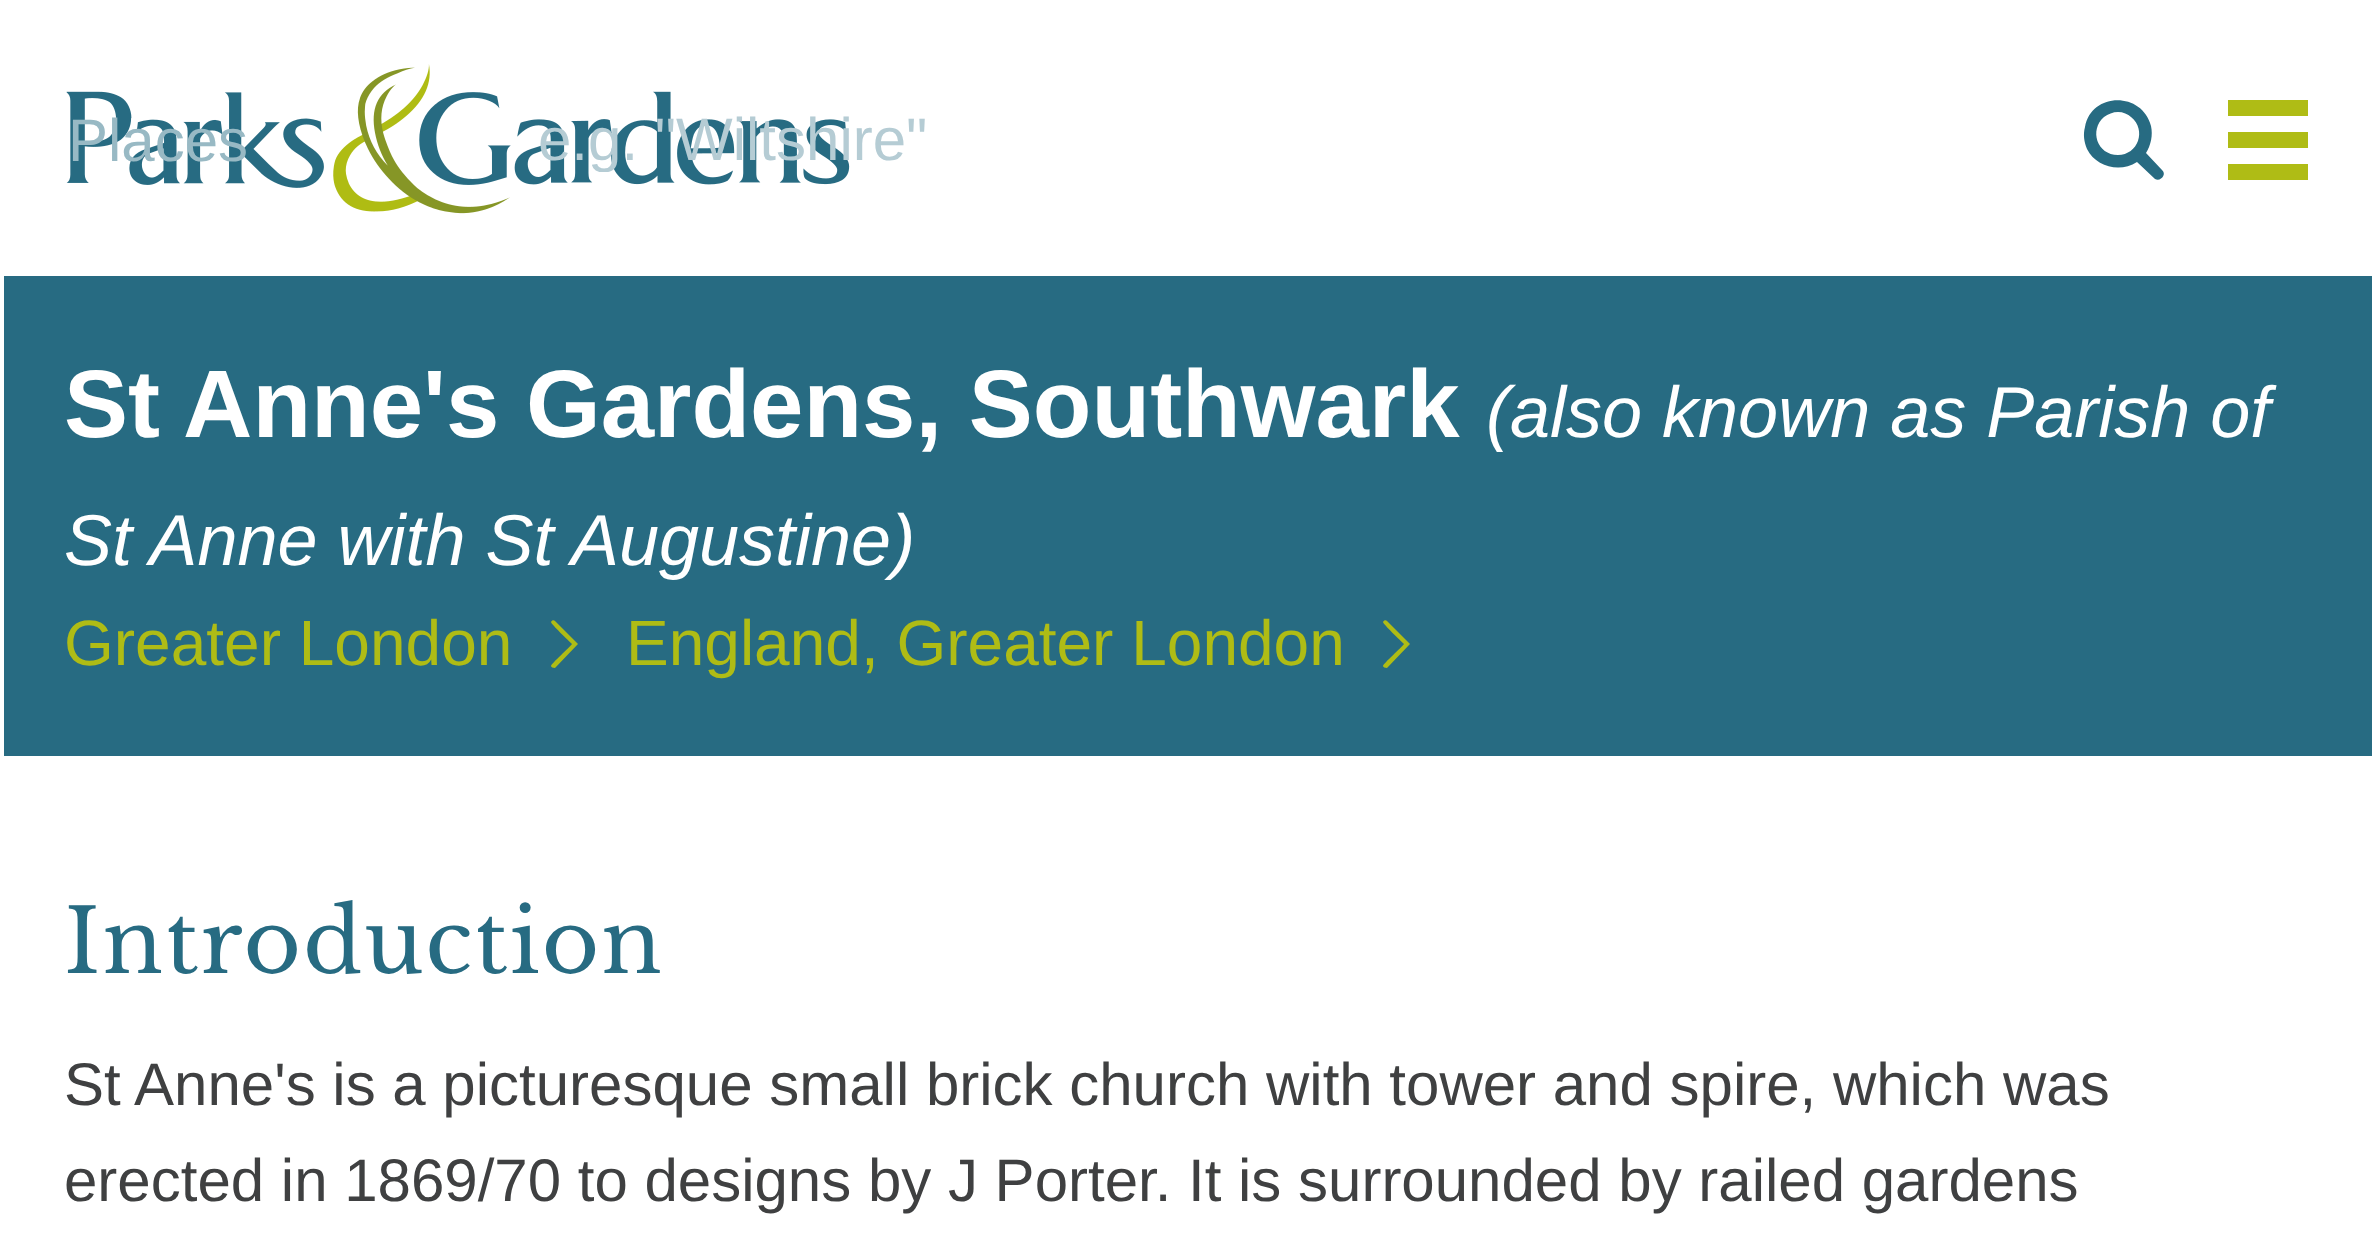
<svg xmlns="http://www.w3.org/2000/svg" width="2372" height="1245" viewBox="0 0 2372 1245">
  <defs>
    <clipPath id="clip1"><rect x="540" y="104" width="1284" height="68"/></clipPath>
  </defs>
  <rect width="100%" height="100%" fill="rgb(255,255,255)"/>
  <image x="66" y="64" width="784" height="150" href="pic1.png"/>
  <path d="M2118 155C2097 155 2089 130 2104 117C2108 114 2113 112 2118 112C2123 112 2128 114 2131 117C2147 130 2138 155 2118 155ZM2162 170L2146 153C2151 145 2153 135 2151 126C2142 91 2091 92 2085 127C2083 134 2084 142 2087 149C2096 167 2120 173 2137 162L2155 179C2161 182 2167 174 2162 170Z" fill="rgb(39,107,130)"/>
  <rect x="2228" y="100" width="80" height="16" fill="rgb(175,188,21)"/>
  <rect x="2228" y="132" width="80" height="16" fill="rgb(175,188,21)"/>
  <rect x="2228" y="164" width="80" height="16" fill="rgb(175,188,21)"/>
  <text x="68" y="161" font-family="Liberation Sans" font-size="60" fill="rgb(152,185,196)">Places</text>
  <g clip-path="url(#clip1)">
    <text x="538" y="160" font-family="Liberation Sans" font-size="60" fill="rgb(181,204,212)">e.g. "Wiltshire"</text>
  </g>
  <rect x="4" y="276" width="2368" height="480" fill="rgb(39,107,130)"/>
  <text x="64" y="437" font-family="Liberation Sans" font-size="96" font-weight="bold" fill="rgb(255,255,255)">St Anne's Gardens, Southwark</text>
  <g font-family="Liberation Sans" font-size="72" font-style="italic" fill="rgb(255,255,255)">
    <text x="1486" y="437">(also known as Parish of</text>
    <text x="64" y="565">St Anne with St Augustine)</text>
  </g>
  <text x="64" y="665" font-family="Liberation Sans" font-size="64" fill="rgb(175,188,21)">Greater London</text>
  <path d="M555 621L578 644L555 668C553 668 551 667 551 666C551 664 570 647 572 644C569 641 551 624 551 622C552 620 554 620 555 621Z" fill="rgb(175,188,21)"/>
  <text x="626" y="665" font-family="Liberation Sans" font-size="64" fill="rgb(175,188,21)">England, Greater London</text>
  <path d="M1387 621L1410 644L1387 668C1385 668 1383 667 1383 666C1383 664 1402 647 1404 644C1401 641 1383 624 1383 622C1384 620 1386 620 1387 621Z" fill="rgb(175,188,21)"/>
  <text x="64" y="973" font-family="Libre Baskerville" font-size="88" letter-spacing="2" fill="rgb(39,107,130)">Introduction</text>
  <g font-family="Liberation Sans" font-size="60" fill="rgb(63,64,65)">
    <text>
      <tspan x="64" y="1105">St Anne's is a picturesque small brick church with tower and spire, which was</tspan>
      <tspan x="64" y="1201">erected in 1869/70 to designs by J Porter. It is surrounded by railed gardens</tspan>
    </text>
  </g>
</svg>
